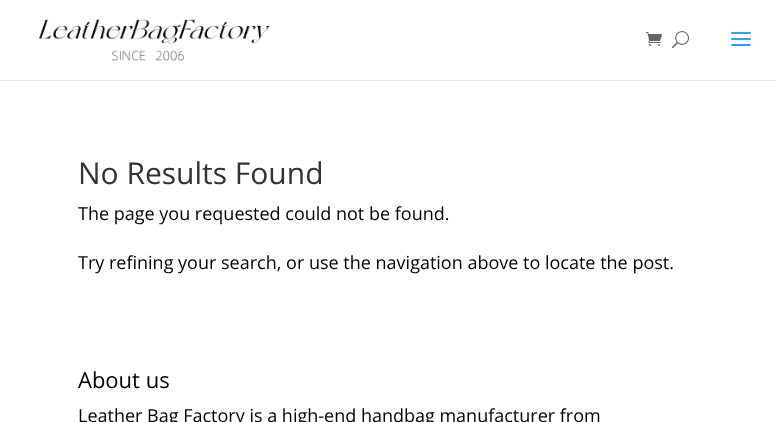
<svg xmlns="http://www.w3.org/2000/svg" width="776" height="422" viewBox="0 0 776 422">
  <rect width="100%" height="100%" fill="rgb(255,255,255)"/>
  <rect x="0" y="80" width="776" height="1" fill="rgb(230,230,230)"/>
  <image x="38" y="19" width="232" height="42" href="pic1.png"/>
  <image x="646" y="32" width="16" height="14" href="pic2.png"/>
  <image x="672" y="31" width="17" height="18" href="pic3.png"/>
  <image x="731" y="32" width="20" height="14" href="pic4.png"/>
  <text x="78" y="184" font-family="Open Sans" font-size="30" fill="rgb(51,51,51)">No Results Found</text>
  <g font-family="Open Sans" font-size="18" fill="rgb(0,0,0)">
    <text x="78" y="220">The page you requested could not be found.</text>
    <text x="78" y="269">Try refining your search, or use the navigation above to locate the post.</text>
  </g>
  <text x="78" y="388" font-family="Open Sans" font-size="22" fill="rgb(0,0,0)">About us</text>
  <text x="78" y="422" font-family="Open Sans" font-size="18" fill="rgb(0,0,0)">Leather Bag Factory is a high-end handbag manufacturer from</text>
</svg>
